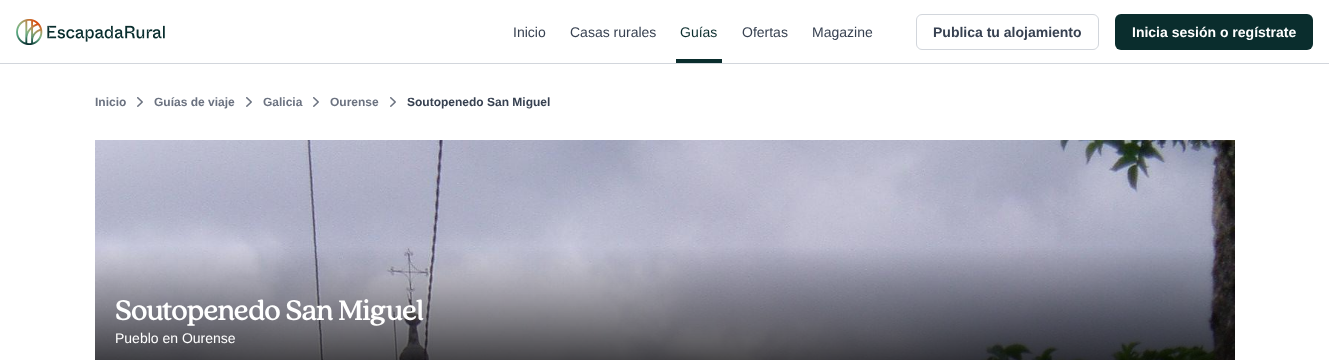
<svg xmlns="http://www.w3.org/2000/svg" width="1329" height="360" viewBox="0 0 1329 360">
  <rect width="100%" height="100%" fill="rgb(255,255,255)"/>
  <rect x="0" y="63" width="1329" height="1" fill="rgb(210,214,220)"/>
  <image x="16" y="19" width="149" height="26" href="pic1.png"/>
  <g font-family="Liberation Sans" font-size="14" fill="rgb(55,65,81)">
    <text x="513" y="37">Inicio</text>
    <text x="570" y="37">Casas rurales</text>
  </g>
  <text x="680" y="37" font-family="Liberation Sans" font-size="14" fill="rgb(10,45,45)">Guías</text>
  <rect x="676" y="59" width="46" height="4" fill="rgb(10,45,45)"/>
  <g font-family="Liberation Sans" font-size="14" fill="rgb(55,65,81)">
    <text x="742" y="37">Ofertas</text>
    <text x="812" y="37">Magazine</text>
  </g>
  <rect x="916.5" y="14.5" width="182" height="35" rx="5.5" fill="none" stroke="rgb(210,214,220)"/>
  <text x="933" y="37" font-family="Liberation Sans" font-size="14" font-weight="bold" fill="rgb(55,65,81)">Publica tu alojamiento</text>
  <rect x="1115" y="14" width="198" height="36" rx="6" fill="rgb(10,45,45)"/>
  <text x="1132" y="37" font-family="Liberation Sans" font-size="14" font-weight="bold" fill="rgb(255,255,255)">Inicia sesión o regístrate</text>
  <text x="95" y="106" font-family="Liberation Sans" font-size="12" font-weight="bold" fill="rgb(107,114,128)">Inicio</text>
  <image x="137" y="97" width="6" height="10" href="pic2.png"/>
  <text x="154" y="106" font-family="Liberation Sans" font-size="12" font-weight="bold" fill="rgb(107,114,128)">Guías de viaje</text>
  <image x="246" y="97" width="6" height="10" href="pic2.png"/>
  <text x="263" y="106" font-family="Liberation Sans" font-size="12" font-weight="bold" fill="rgb(107,114,128)">Galicia</text>
  <image x="313" y="97" width="6" height="10" href="pic2.png"/>
  <text x="330" y="106" font-family="Liberation Sans" font-size="12" font-weight="bold" fill="rgb(107,114,128)">Ourense</text>
  <image x="390" y="97" width="6" height="10" href="pic2.png"/>
  <text x="407" y="106" font-family="Liberation Sans" font-size="12" font-weight="bold" fill="rgb(55,65,81)">Soutopenedo San Miguel</text>
  <image x="95" y="140" width="1140" height="220" href="pic3.png"/>
  <text x="115" y="320" font-family="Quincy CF" font-size="30" font-weight="bold" fill="rgb(255,255,255)">Soutopenedo San Miguel</text>
  <text x="115" y="343" font-family="Liberation Sans" font-size="14" fill="rgb(255,255,255)">Pueblo en Ourense</text>
</svg>
